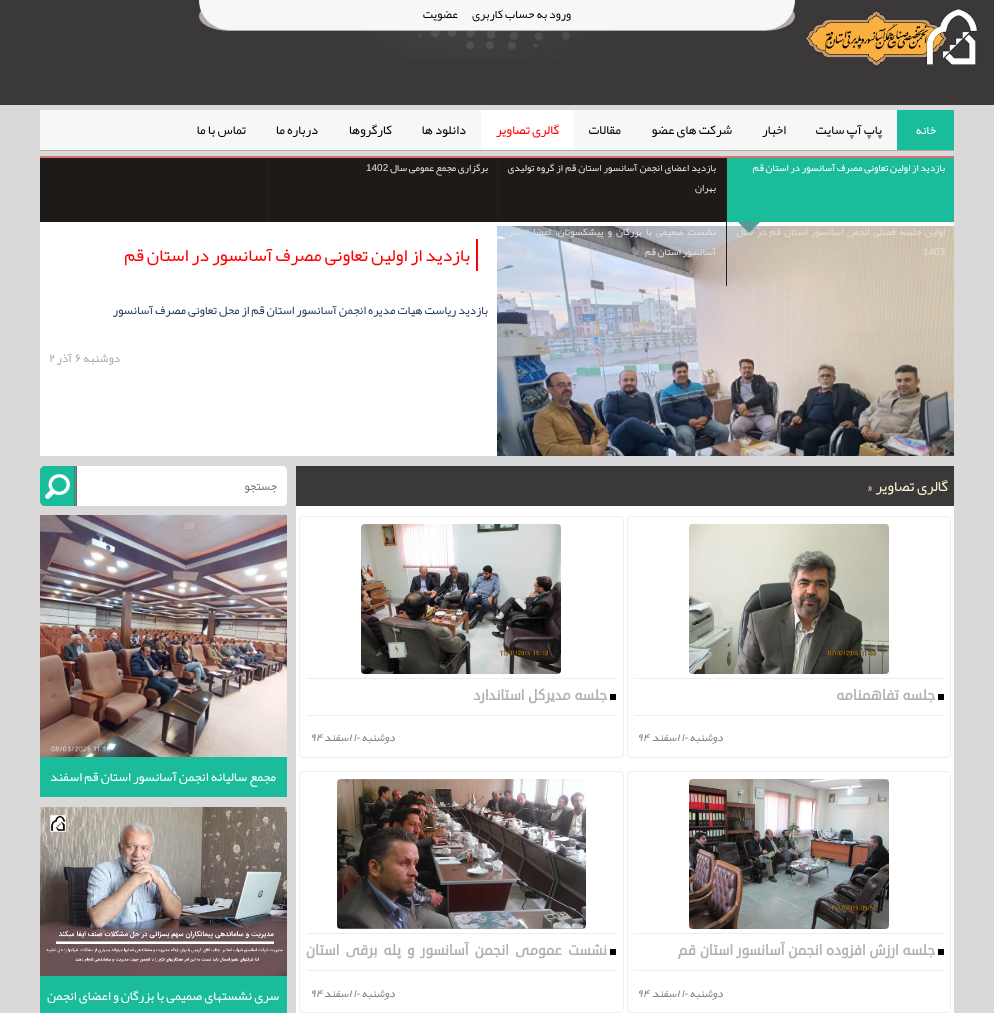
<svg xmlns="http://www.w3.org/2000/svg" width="994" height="1013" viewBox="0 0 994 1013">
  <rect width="100%" height="100%" fill="rgb(217,217,217)"/>
  <rect x="0" y="0" width="994" height="105" fill="rgb(58,56,56)"/>
  <image x="364" y="30" width="258" height="29" href="pic1.png"/>
  <image x="805" y="9" width="173" height="59" href="pic2.png"/>
  <rect x="199" y="1" width="596" height="30" rx="30" fill="rgb(179,169,169)" filter="blur(0.5px)"/>
  <path d="M199 0H795C795 16.5 781.5 30 765 30H229C212.5 30 199 16.5 199 0Z" fill="rgb(247,247,247)"/>
  <g font-family="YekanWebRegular" font-size="12" direction="rtl" fill="rgb(0,0,0)">
    <text x="571" y="18">ورود به حساب کاربری</text>
    <text x="458" y="18">عضویت</text>
  </g>
  <rect x="40" y="111" width="914" height="40" fill="rgb(179,169,169)" filter="blur(0.5px)"/>
  <rect x="40" y="110" width="857" height="40" fill="rgb(247,247,247)"/>
  <rect x="897" y="110" width="57" height="40" fill="rgb(27,188,155)"/>
  <text x="936" y="134" font-family="YekanWebRegular" font-size="12" direction="rtl" fill="rgb(255,255,255)">خانه</text>
  <g font-family="YekanWebRegular" font-size="13" direction="rtl" fill="rgb(0,0,0)">
    <text x="882" y="134">پاپ آپ سایت</text>
    <text x="786" y="134">اخبار</text>
    <text x="732" y="134">شرکت های عضو</text>
    <text x="621" y="134">مقالات</text>
  </g>
  <rect x="481" y="110" width="93" height="40" fill="rgb(255,255,255)"/>
  <text x="559" y="134" font-family="YekanWebRegular" font-size="13" direction="rtl" fill="rgb(255,0,0)">گالری تصاویر</text>
  <g font-family="YekanWebRegular" font-size="13" direction="rtl" fill="rgb(0,0,0)">
    <text x="466" y="134">دانلود ها</text>
    <text x="392" y="134">کارگروها</text>
    <text x="318" y="134">درباره ما</text>
    <text x="246" y="134">تماس با ما</text>
  </g>
  <rect x="40" y="158" width="686" height="64" fill="rgb(29,26,23)"/>
  <rect x="40" y="156" width="914" height="2" fill="rgb(223,110,110)"/>
  <rect x="727" y="158" width="227" height="64" fill="rgb(27,188,155)"/>
  <rect x="40" y="222" width="914" height="234" fill="rgb(255,255,255)"/>
  <image x="497" y="226" width="457" height="230" href="pic3.png"/>
  <rect x="726" y="158" width="1" height="128" fill="rgb(33,33,33)"/>
  <text x="945" y="171" font-family="YekanWebRegular" font-size="10" direction="rtl" fill="rgb(255,255,255)">بازدید از اولین تعاونی مصرف آسانسور در استان قم</text>
  <text x="945" y="235" word-spacing="1.75" font-family="YekanWebRegular" font-size="10" direction="rtl" fill="rgb(226,223,214)">اولین جلسه فصلی انجمن اسانسور استان قم در سال</text>
  <path d="M738 222H760L749 233Z" fill="rgb(86,154,147)"/>
  <rect x="497" y="158" width="1" height="64" fill="rgb(33,33,33)"/>
  <g font-family="YekanWebRegular" font-size="10" direction="rtl" fill="rgb(226,223,214)">
    <text x="716" y="171" word-spacing="0.5">بازدید اعضای انجمن آسانسور استان قم از گروه تولیدی</text>
    <text x="716" y="191">بهران</text>
  </g>
  <rect x="268" y="158" width="1" height="64" fill="rgb(33,33,33)"/>
  <text x="488" y="171" font-family="YekanWebRegular" font-size="10" direction="rtl" fill="rgb(226,223,214)">برگزاری مجمع عمومی سال</text>
  <g font-family="Liberation Sans" font-size="10" fill="rgb(226,223,214)">
    <text x="366" y="171">1402</text>
    <text x="923" y="255">1403</text>
  </g>
  <g font-family="YekanWebRegular" font-size="10" direction="rtl" fill="rgb(226,223,214)">
    <text x="716" y="235" word-spacing="2.5">نشست صمیمی با بزرگان و پیشکسوتان، اعضا انجمن</text>
    <text x="716" y="255">آسانسور استان قم</text>
  </g>
  <rect x="476" y="239" width="2" height="32" fill="rgb(255,0,0)"/>
  <text x="470" y="261" font-family="YekanWebRegular" font-size="18" direction="rtl" fill="rgb(255,0,0)">بازدید از اولین تعاونی مصرف آسانسور در استان قم</text>
  <text x="488" y="314" font-family="YekanWebRegular" font-size="12" direction="rtl" fill="rgb(37,58,93)">بازدید ریاست هیات مدیره انجمن آسانسور استان قم از محل تعاونی مصرف آسانسور</text>
  <text x="120" y="362" font-family="YekanWebRegular" font-size="12" direction="rtl" fill="rgb(170,170,170)">دوشنبه</text>
  <text x="75" y="362" font-family="YekanWebRegular" font-size="12" fill="rgb(170,170,170)">۶</text>
  <text x="72" y="362" font-family="YekanWebRegular" font-size="12" direction="rtl" fill="rgb(170,170,170)">آذر</text>
  <text x="49" y="362" font-family="YekanWebRegular" font-size="12" fill="rgb(170,170,170)">۲</text>
  <rect x="296" y="506" width="658" height="507" fill="rgb(255,255,255)"/>
  <rect x="296" y="466" width="658" height="40" fill="rgb(58,56,56)"/>
  <text x="948" y="491" font-family="YekanWebRegular" font-size="15" direction="rtl" fill="rgb(243,243,210)">گالری تصاویر</text>
  <text x="867" y="491" font-family="YekanWebRegular" font-size="15" fill="rgb(255,234,224)">»</text>
  <rect x="627.5" y="516.5" width="323" height="241" rx="3.5" fill="none" stroke="rgb(238,238,238)"/>
  <image x="689" y="524" width="200" height="150" href="pic4.png"/>
  <rect x="634" y="678" width="310" height="1" fill="rgb(238,238,238)"/>
  <rect x="634" y="715" width="310" height="1" fill="rgb(238,238,238)"/>
  <rect x="938" y="694" width="6" height="6" fill="rgb(0,0,0)"/>
  <text x="935" y="700" font-family="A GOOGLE" font-size="14" font-weight="bold" direction="rtl" fill="rgb(178,178,178)">جلسه تفاهمنامه</text>
  <text x="723" y="741" font-family="YekanWebRegular" font-size="11" font-style="italic" direction="rtl" fill="rgb(128,128,128)">دوشنبه</text>
  <text x="681" y="741" font-family="YekanWebRegular" font-size="11" font-style="italic" fill="rgb(128,128,128)">۱۰</text>
  <text x="679" y="741" font-family="YekanWebRegular" font-size="11" font-style="italic" direction="rtl" fill="rgb(128,128,128)">اسفند</text>
  <text x="637" y="741" font-family="YekanWebRegular" font-size="11" font-style="italic" fill="rgb(128,128,128)">۹۴</text>
  <rect x="299.5" y="516.5" width="324" height="241" rx="3.5" fill="none" stroke="rgb(238,238,238)"/>
  <image x="361" y="524" width="200" height="150" href="pic5.png"/>
  <rect x="307" y="678" width="309" height="1" fill="rgb(238,238,238)"/>
  <rect x="307" y="715" width="309" height="1" fill="rgb(238,238,238)"/>
  <rect x="610" y="694" width="6" height="6" fill="rgb(0,0,0)"/>
  <text x="607" y="700" font-family="A GOOGLE" font-size="14" font-weight="bold" direction="rtl" fill="rgb(178,178,178)">جلسه مدیرکل استاندارد</text>
  <text x="395" y="741" font-family="YekanWebRegular" font-size="11" font-style="italic" direction="rtl" fill="rgb(128,128,128)">دوشنبه</text>
  <text x="353" y="741" font-family="YekanWebRegular" font-size="11" font-style="italic" fill="rgb(128,128,128)">۱۰</text>
  <text x="351" y="741" font-family="YekanWebRegular" font-size="11" font-style="italic" direction="rtl" fill="rgb(128,128,128)">اسفند</text>
  <text x="310" y="741" font-family="YekanWebRegular" font-size="11" font-style="italic" fill="rgb(128,128,128)">۹۴</text>
  <rect x="627.5" y="771.5" width="323" height="241" rx="3.5" fill="none" stroke="rgb(238,238,238)"/>
  <image x="689" y="779" width="200" height="150" href="pic6.png"/>
  <rect x="634" y="933" width="310" height="1" fill="rgb(238,238,238)"/>
  <rect x="634" y="970" width="310" height="1" fill="rgb(238,238,238)"/>
  <rect x="938" y="949" width="6" height="6" fill="rgb(0,0,0)"/>
  <text x="935" y="955" font-family="A GOOGLE" font-size="14" font-weight="bold" direction="rtl" fill="rgb(178,178,178)">جلسه ارزش افزوده انجمن آسانسور استان قم</text>
  <text x="723" y="997" font-family="YekanWebRegular" font-size="11" font-style="italic" direction="rtl" fill="rgb(128,128,128)">دوشنبه</text>
  <text x="681" y="997" font-family="YekanWebRegular" font-size="11" font-style="italic" fill="rgb(128,128,128)">۱۰</text>
  <text x="679" y="997" font-family="YekanWebRegular" font-size="11" font-style="italic" direction="rtl" fill="rgb(128,128,128)">اسفند</text>
  <text x="637" y="997" font-family="YekanWebRegular" font-size="11" font-style="italic" fill="rgb(128,128,128)">۹۴</text>
  <rect x="299.5" y="771.5" width="324" height="241" rx="3.5" fill="none" stroke="rgb(238,238,238)"/>
  <image x="337" y="779" width="249" height="150" href="pic7.png"/>
  <rect x="307" y="933" width="309" height="1" fill="rgb(238,238,238)"/>
  <rect x="307" y="970" width="309" height="1" fill="rgb(238,238,238)"/>
  <rect x="610" y="949" width="6" height="6" fill="rgb(0,0,0)"/>
  <text x="607" y="955" word-spacing="2.5" font-family="A GOOGLE" font-size="14" font-weight="bold" direction="rtl" fill="rgb(178,178,178)">نشست عمومی انجمن آسانسور و پله برقی استان</text>
  <text x="395" y="997" font-family="YekanWebRegular" font-size="11" font-style="italic" direction="rtl" fill="rgb(128,128,128)">دوشنبه</text>
  <text x="353" y="997" font-family="YekanWebRegular" font-size="11" font-style="italic" fill="rgb(128,128,128)">۱۰</text>
  <text x="351" y="997" font-family="YekanWebRegular" font-size="11" font-style="italic" direction="rtl" fill="rgb(128,128,128)">اسفند</text>
  <text x="310" y="997" font-family="YekanWebRegular" font-size="11" font-style="italic" fill="rgb(128,128,128)">۹۴</text>
  <rect x="40" y="466" width="247" height="40" rx="5" fill="rgb(255,255,255)"/>
  <path d="M89 466H282C285 466 287 468 287 471V501C287 504 285 506 282 506H89Z" fill="rgb(255,255,255)"/>
  <text x="277" y="490" font-family="YekanWebRegular" font-size="12" direction="rtl" fill="rgb(117,117,117)">جستجو</text>
  <path d="M45 466H77V506H45C42 506 40 504 40 501V471C40 468 42 466 45 466Z" fill="rgb(27,188,155)"/>
  <rect x="74" y="466" width="1" height="40" fill="rgb(107,105,105)"/>
  <rect x="76" y="466" width="1" height="40" fill="rgb(107,105,105)"/>
  <image x="45" y="474" width="25" height="25" href="pic8.png"/>
  <image x="40" y="515" width="247" height="242" href="pic9.png"/>
  <rect x="40" y="757" width="247" height="40" fill="rgb(27,188,155)"/>
  <g font-family="YekanWebRegular" font-size="13" direction="rtl" fill="rgb(255,255,255)">
    <text x="276" y="781">مجمع سالیانه انجمن آسانسور استان قم</text>
    <text x="82" y="781">اسفند</text>
  </g>
  <image x="40" y="807" width="247" height="169" href="pic10.png"/>
  <rect x="40" y="976" width="247" height="37" fill="rgb(27,188,155)"/>
  <text x="279" y="1000" font-family="YekanWebRegular" font-size="13" direction="rtl" fill="rgb(255,255,255)">سری نشستهای صمیمی با بزرگان و اعضای انجمن</text>
</svg>
